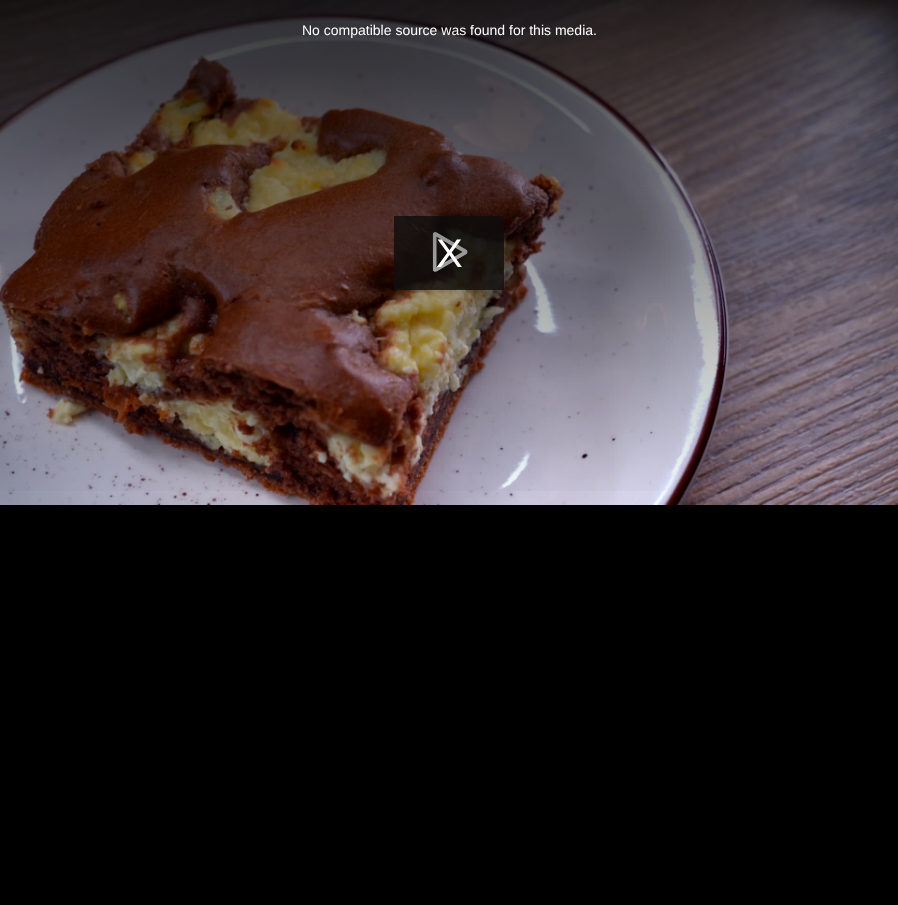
<svg xmlns="http://www.w3.org/2000/svg" width="898" height="905" viewBox="0 0 898 905">
  <defs>
    <linearGradient id="g1" gradientUnits="userSpaceOnUse" x1="449" y1="0" x2="449" y2="505"><stop offset="0" stop-color="rgb(0,0,0)" stop-opacity="0.8"/><stop offset="1" stop-color="rgb(0,0,0)" stop-opacity="0"/></linearGradient>
  </defs>
  <rect width="100%" height="100%" fill="rgb(0,0,0)"/>
  <image x="0" y="0" width="898" height="505" href="pic1.png"/>
  <image x="394" y="216" width="110" height="74" href="pic2.png"/>
  <rect x="0" y="0" width="898" height="491" fill="url(#g1)"/>
  <text x="302" y="35" font-family="Liberation Sans" font-size="14" fill="rgb(255,255,255)">No compatible source was found for this media.</text>
  <text x="436" y="267" font-family="Liberation Sans" font-size="40" fill="rgb(255,255,255)">X</text>
</svg>
